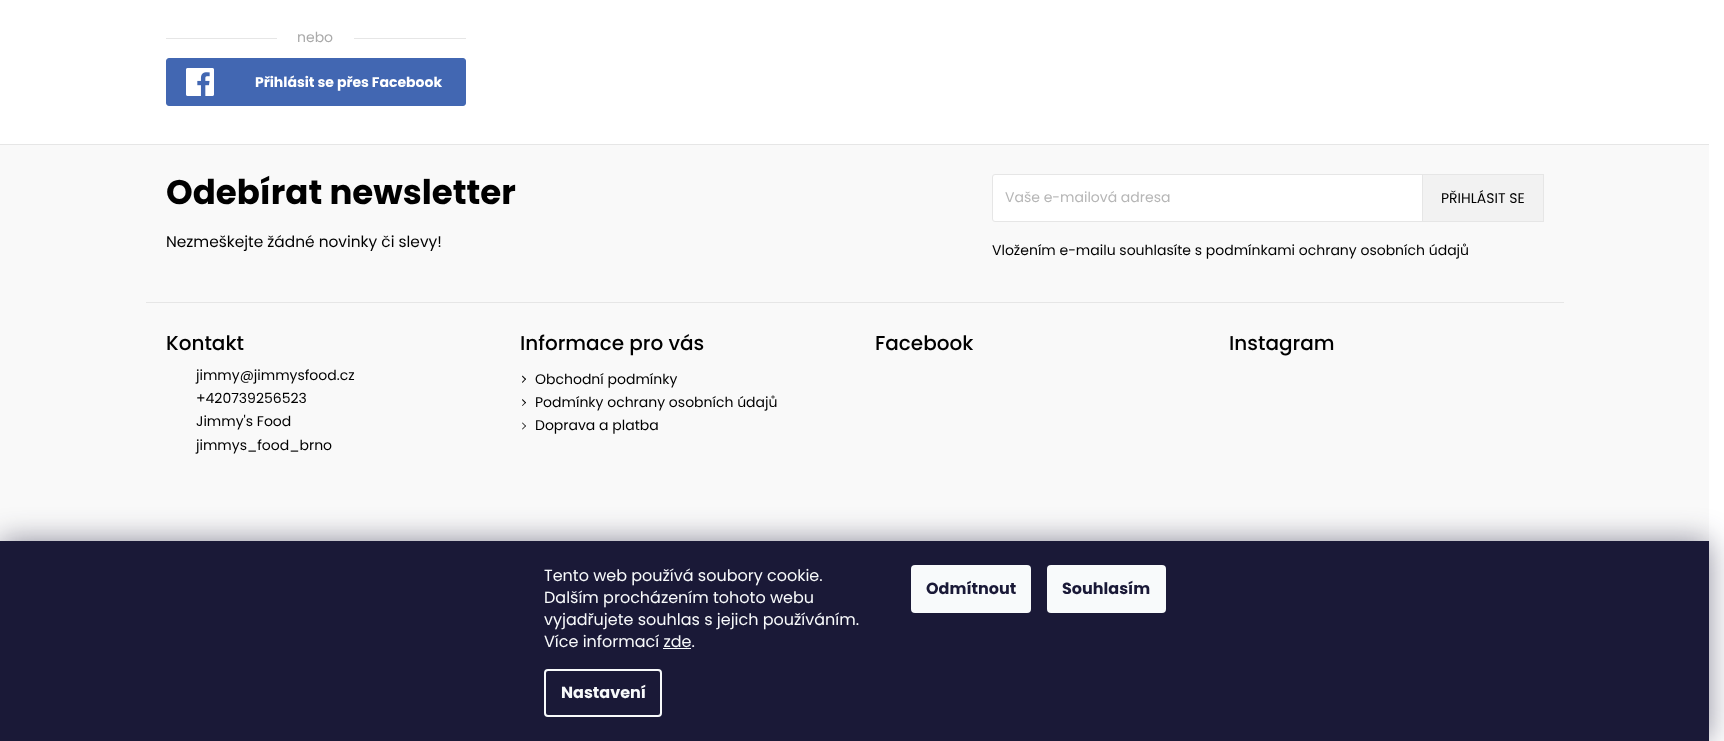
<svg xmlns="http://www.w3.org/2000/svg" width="1724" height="741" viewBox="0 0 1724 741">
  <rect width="100%" height="100%" fill="rgb(255,255,255)"/>
  <rect x="166" y="38" width="111" height="1" fill="rgb(230,230,230)"/>
  <text x="297" y="42" font-family="Poppins" font-size="14" fill="rgb(170,170,170)">nebo</text>
  <rect x="354" y="38" width="112" height="1" fill="rgb(230,230,230)"/>
  <rect x="166.5" y="58.5" width="299" height="47" rx="2.5" fill="rgb(66,103,178)" stroke="rgb(66,103,178)"/>
  <image x="186" y="68" width="28" height="28" href="pic1.png"/>
  <text x="255" y="87" font-family="Poppins" font-size="14" font-weight="bold" fill="rgb(255,255,255)">Přihlásit se přes Facebook</text>
  <rect x="0" y="145" width="1709" height="396" fill="rgb(249,249,249)"/>
  <rect x="0" y="144" width="1709" height="1" fill="rgb(230,230,230)"/>
  <rect x="146" y="302" width="1418" height="1" fill="rgb(230,230,230)"/>
  <text x="166" y="204" font-family="Poppins" font-size="34" font-weight="bold" fill="rgb(0,0,0)">Odebírat newsletter</text>
  <text x="166" y="247" font-family="Poppins" font-size="15.4" fill="rgb(0,0,0)">Nezmeškejte žádné novinky či slevy!</text>
  <rect x="992.5" y="174.5" width="551" height="47" rx="2.5" fill="rgb(255,255,255)" stroke="rgb(230,230,230)"/>
  <text x="1005" y="202" font-family="Poppins" font-size="14" fill="rgb(182,182,182)">Vaše e-mailová adresa</text>
  <rect x="1422.5" y="174.5" width="121" height="47" fill="rgb(242,242,242)" stroke="rgb(230,230,230)"/>
  <g font-family="Poppins" font-size="14" fill="rgb(0,0,0)">
    <text x="1441" y="203">PŘIHLÁSIT SE</text>
    <text x="992" y="255">Vložením e-mailu souhlasíte s podmínkami ochrany osobních údajů</text>
  </g>
  <text x="166" y="350" font-family="Poppins" font-size="20" font-weight="500" fill="rgb(0,0,0)">Kontakt</text>
  <g font-family="Poppins" font-size="14" fill="rgb(0,0,0)">
    <text>
      <tspan x="196" y="380">jimmy@jimmysfood.cz</tspan>
      <tspan x="196" y="403">+420739256523</tspan>
      <tspan x="196" y="426">Jimmy's Food</tspan>
      <tspan x="196" y="450">jimmys_food_brno</tspan>
    </text>
  </g>
  <text x="520" y="350" font-family="Poppins" font-size="20" font-weight="500" fill="rgb(0,0,0)">Informace pro vás</text>
  <path d="M522 376.5L522.5 375.5L526 379L525.5 380Z" fill="rgb(0,0,0)"/>
  <path d="M522 382L525.5 378.5L526 379L522.5 383Z" fill="rgb(0,0,0)"/>
  <text x="535" y="384" font-family="Poppins" font-size="14" fill="rgb(0,0,0)">Obchodní podmínky</text>
  <path d="M522 400L522.5 399L526 402.5L525.5 403.5Z" fill="rgb(0,0,0)"/>
  <path d="M522 405.5L525.5 402L526 402.5L522.5 406Z" fill="rgb(0,0,0)"/>
  <text x="535" y="407" font-family="Poppins" font-size="14" fill="rgb(0,0,0)">Podmínky ochrany osobních údajů</text>
  <path d="M522 423L522.5 422.5L526 426L525.5 426.5Z" fill="rgb(0,0,0)"/>
  <path d="M522 429L525.5 425.5L526 426L522.5 429.5Z" fill="rgb(0,0,0)"/>
  <text x="535" y="430" font-family="Poppins" font-size="14" fill="rgb(0,0,0)">Doprava a platba</text>
  <g font-family="Poppins" font-size="20" font-weight="500" fill="rgb(0,0,0)">
    <text x="875" y="350">Facebook</text>
    <text x="1229" y="350">Instagram</text>
  </g>
  <rect x="0" y="541" width="1709" height="200" fill="rgba(27,25,57,0.5)" filter="blur(15px)"/>
  <rect x="0" y="541" width="1709" height="200" fill="rgb(26,25,55)"/>
  <g font-family="Poppins" font-size="16" fill="rgb(248,250,251)">
    <text>
      <tspan x="544" y="581">Tento web používá soubory cookie.</tspan>
      <tspan x="544" y="603">Dalším procházením tohoto webu</tspan>
      <tspan x="544" y="625">vyjadřujete souhlas s jejich používáním.</tspan>
      <tspan x="544" y="647">Více informací zde.</tspan>
    </text>
  </g>
  <rect x="663" y="648" width="28" height="1" fill="rgb(248,250,251)"/>
  <rect x="545" y="670" width="116" height="46" rx="3" fill="none" stroke="rgb(248,250,251)" stroke-width="2"/>
  <text x="561" y="698" font-family="Poppins" font-size="16" font-weight="bold" fill="rgb(248,250,251)">Nastavení</text>
  <rect x="911" y="565" width="120" height="48" rx="4" fill="rgb(248,250,251)"/>
  <text x="926" y="594" font-family="Poppins" font-size="16" font-weight="bold" fill="rgb(26,25,55)">Odmítnout</text>
  <rect x="1047" y="565" width="119" height="48" rx="4" fill="rgb(248,250,251)"/>
  <text x="1062" y="594" font-family="Poppins" font-size="16" font-weight="bold" fill="rgb(26,25,55)">Souhlasím</text>
</svg>
